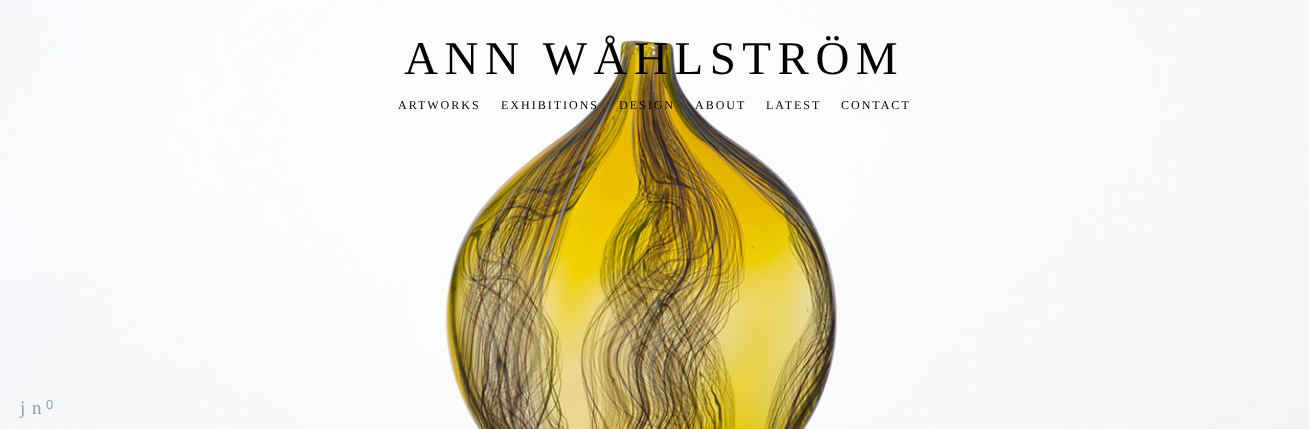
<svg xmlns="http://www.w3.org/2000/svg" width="1309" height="429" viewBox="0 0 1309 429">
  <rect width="100%" height="100%" fill="rgb(255,255,255)"/>
  <image x="0" y="0" width="1309" height="429" href="pic1.png"/>
  <text x="404" y="74" font-family="Liberation Serif" font-size="47" letter-spacing="6.5" fill="rgb(0,0,0)">ANN WÅHLSTRÖM</text>
  <g font-family="Liberation Serif" font-size="12" letter-spacing="2" fill="rgb(0,0,0)">
    <text x="398" y="109">ARTWORKS</text>
    <text x="501" y="109">EXHIBITIONS</text>
    <text x="619" y="109">DESIGN</text>
    <text x="695" y="109">ABOUT</text>
    <text x="766" y="109">LATEST</text>
    <text x="841" y="109">CONTACT</text>
  </g>
  <g font-family="Liberation Serif" font-size="19" fill="rgb(145,161,166)">
    <text x="20" y="414">j</text>
    <text x="32" y="414">n</text>
  </g>
  <text x="46" y="409" font-family="Liberation Sans" font-size="13" fill="rgb(145,161,166)">0</text>
</svg>
